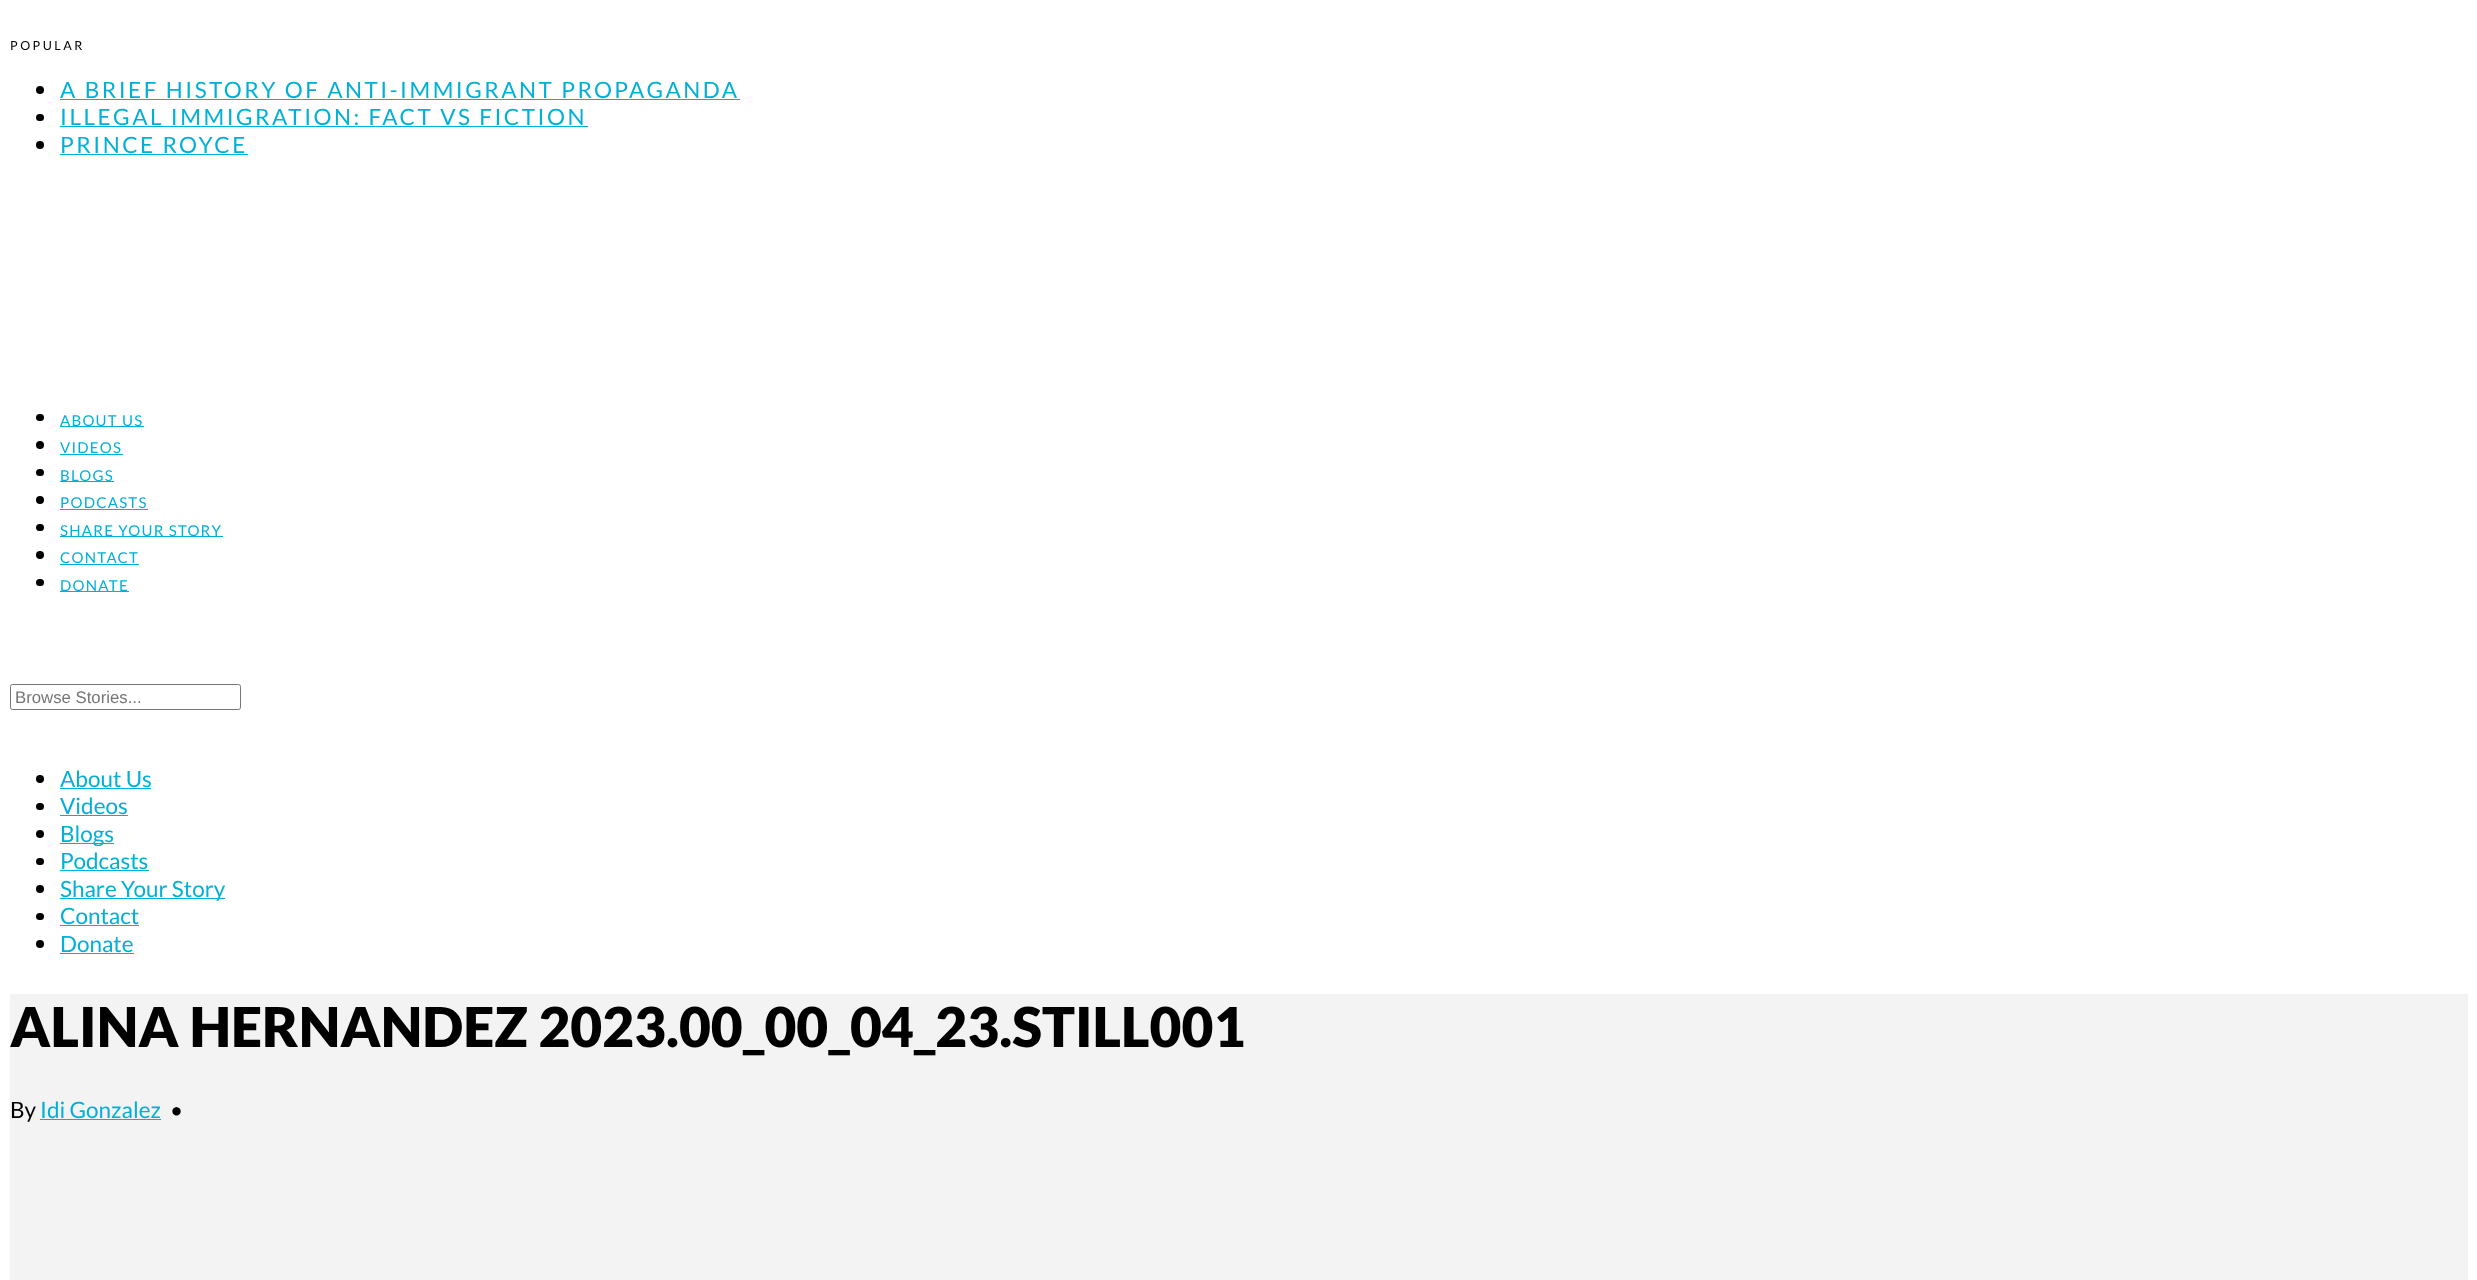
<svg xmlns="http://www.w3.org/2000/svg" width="2477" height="1280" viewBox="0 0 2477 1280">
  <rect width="100%" height="100%" fill="rgb(255,255,255)"/>
  <text x="10" y="50" font-family="Lato" font-size="12.5" letter-spacing="2.5" fill="rgb(0,0,0)">POPULAR</text>
  <circle cx="40" cy="90" r="4" fill="rgb(0,0,0)"/>
  <text x="60" y="98" font-family="Lato" font-size="22.5" letter-spacing="2.5" fill="rgb(0,176,215)">A BRIEF HISTORY OF ANTI-IMMIGRANT PROPAGANDA</text>
  <rect x="60" y="99" width="680" height="1" fill="rgb(0,176,215)"/>
  <rect x="36" y="114" width="8" height="7" rx="3.5" fill="rgb(0,0,0)"/>
  <text x="60" y="125" font-family="Lato" font-size="22.5" letter-spacing="2.5" fill="rgb(0,176,215)">ILLEGAL IMMIGRATION: FACT VS FICTION</text>
  <rect x="60" y="126" width="528" height="1" fill="rgb(0,176,215)"/>
  <circle cx="40" cy="145" r="4" fill="rgb(0,0,0)"/>
  <text x="60" y="153" font-family="Lato" font-size="22.5" letter-spacing="2.5" fill="rgb(0,176,215)">PRINCE ROYCE</text>
  <rect x="60" y="154" width="188" height="1" fill="rgb(0,176,215)"/>
  <rect x="36" y="414" width="8" height="7" rx="3.5" fill="rgb(0,0,0)"/>
  <rect x="60" y="426" width="84" height="1" fill="rgb(0,176,215)"/>
  <text x="60" y="426" font-family="Lato" font-size="15" letter-spacing="1.25" fill="rgb(0,176,215)">ABOUT US</text>
  <circle cx="40" cy="445" r="4" fill="rgb(0,0,0)"/>
  <text x="60" y="453" font-family="Lato" font-size="15" letter-spacing="1.25" fill="rgb(0,176,215)">VIDEOS</text>
  <rect x="60" y="454" width="63" height="1" fill="rgb(0,176,215)"/>
  <rect x="36" y="469" width="8" height="7" rx="3.5" fill="rgb(0,0,0)"/>
  <rect x="60" y="481" width="54" height="1" fill="rgb(0,176,215)"/>
  <text x="60" y="481" font-family="Lato" font-size="15" letter-spacing="1.25" fill="rgb(0,176,215)">BLOGS</text>
  <circle cx="40" cy="500" r="4" fill="rgb(0,0,0)"/>
  <text x="60" y="508" font-family="Lato" font-size="15" letter-spacing="1.25" fill="rgb(0,176,215)">PODCASTS</text>
  <rect x="60" y="509" width="88" height="1" fill="rgb(0,176,215)"/>
  <rect x="36" y="524" width="8" height="7" rx="3.5" fill="rgb(0,0,0)"/>
  <rect x="60" y="536" width="163" height="1" fill="rgb(0,176,215)"/>
  <text x="60" y="536" font-family="Lato" font-size="15" letter-spacing="1.25" fill="rgb(0,176,215)">SHARE YOUR STORY</text>
  <circle cx="40" cy="555" r="4" fill="rgb(0,0,0)"/>
  <text x="60" y="563" font-family="Lato" font-size="15" letter-spacing="1.25" fill="rgb(0,176,215)">CONTACT</text>
  <rect x="60" y="564" width="79" height="1" fill="rgb(0,176,215)"/>
  <rect x="36" y="579" width="8" height="7" rx="3.5" fill="rgb(0,0,0)"/>
  <rect x="60" y="591" width="69" height="1" fill="rgb(0,176,215)"/>
  <text x="60" y="591" font-family="Lato" font-size="15" letter-spacing="1.25" fill="rgb(0,176,215)">DONATE</text>
  <rect x="10.5" y="684.5" width="230" height="25" rx="2" fill="none" stroke="rgb(118,118,118)"/>
  <text x="15" y="703" font-family="Liberation Sans" font-size="16.75" fill="rgb(117,117,117)">Browse Stories...</text>
  <circle cx="40" cy="779" r="4" fill="rgb(0,0,0)"/>
  <text x="60" y="787" font-family="Lato" font-size="22.5" fill="rgb(0,176,215)">About Us</text>
  <rect x="60" y="788" width="91" height="1" fill="rgb(0,176,215)"/>
  <rect x="36" y="803" width="8" height="7" rx="3.5" fill="rgb(0,0,0)"/>
  <text x="60" y="814" font-family="Lato" font-size="22.5" fill="rgb(0,176,215)">Videos</text>
  <rect x="60" y="815" width="68" height="1" fill="rgb(0,176,215)"/>
  <circle cx="40" cy="834" r="4" fill="rgb(0,0,0)"/>
  <rect x="60" y="843" width="54" height="1" fill="rgb(0,176,215)"/>
  <text x="60" y="842" font-family="Lato" font-size="22.5" fill="rgb(0,176,215)">Blogs</text>
  <rect x="36" y="858" width="8" height="7" rx="3.5" fill="rgb(0,0,0)"/>
  <text x="60" y="869" font-family="Lato" font-size="22.5" fill="rgb(0,176,215)">Podcasts</text>
  <rect x="60" y="870" width="89" height="1" fill="rgb(0,176,215)"/>
  <circle cx="40" cy="889" r="4" fill="rgb(0,0,0)"/>
  <rect x="60" y="898" width="165" height="1" fill="rgb(0,176,215)"/>
  <text x="60" y="897" font-family="Lato" font-size="22.5" fill="rgb(0,176,215)">Share Your Story</text>
  <rect x="36" y="913" width="8" height="7" rx="3.5" fill="rgb(0,0,0)"/>
  <text x="60" y="924" font-family="Lato" font-size="22.5" fill="rgb(0,176,215)">Contact</text>
  <rect x="60" y="925" width="79" height="1" fill="rgb(0,176,215)"/>
  <circle cx="40" cy="944" r="4" fill="rgb(0,0,0)"/>
  <text x="60" y="952" font-family="Lato" font-size="22.5" fill="rgb(0,176,215)">Donate</text>
  <rect x="60" y="953" width="74" height="1" fill="rgb(0,176,215)"/>
  <rect x="10" y="994" width="2458" height="286" fill="rgb(243,243,243)"/>
  <text x="10" y="1047" font-family="Lato" font-size="55" font-weight="900" fill="rgb(0,0,0)">ALINA HERNANDEZ 2023.00_00_04_23.STILL001</text>
  <text x="10" y="1118" font-family="Lato" font-size="22.5" fill="rgb(0,0,0)">By</text>
  <text x="40" y="1118" font-family="Lato" font-size="22.5" fill="rgb(0,176,215)">Idi Gonzalez</text>
  <rect x="40" y="1119" width="121" height="1" fill="rgb(0,176,215)"/>
  <text x="170" y="1118" font-family="Lato" font-size="22.5" fill="rgb(0,0,0)">•</text>
</svg>
